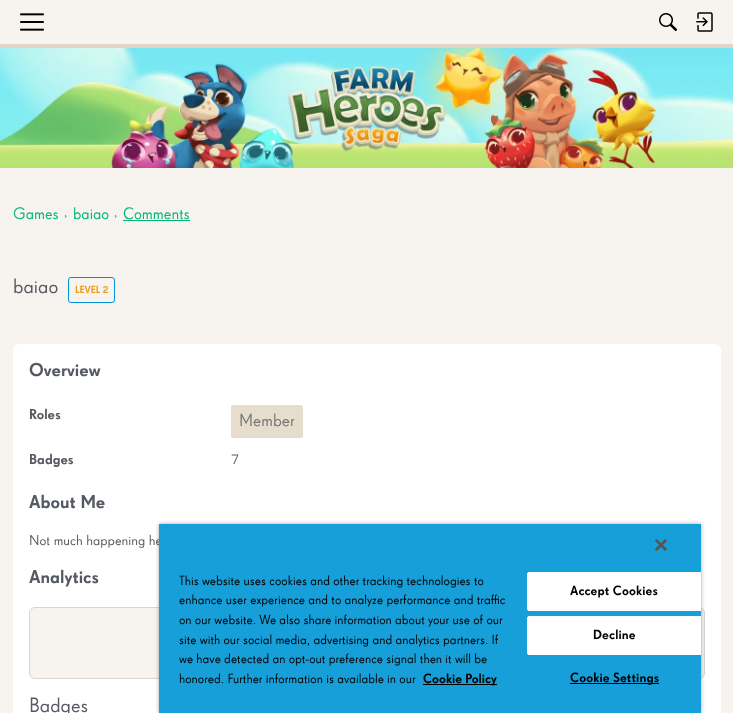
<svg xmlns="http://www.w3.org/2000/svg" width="733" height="713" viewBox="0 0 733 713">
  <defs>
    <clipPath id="clip1"><rect x="159" y="524" width="542" height="189"/></clipPath>
  </defs>
  <rect width="100%" height="100%" fill="rgb(247,244,239)"/>
  <rect x="0" y="44" width="733" height="4" fill="rgb(226,213,199)"/>
  <image x="20" y="13" width="24" height="18" href="pic1.png"/>
  <image x="659" y="13" width="18" height="18" href="pic2.png"/>
  <image x="696" y="12" width="17" height="20" href="pic3.png"/>
  <image x="0" y="48" width="733" height="120" href="pic4.png"/>
  <text x="13" y="219" font-family="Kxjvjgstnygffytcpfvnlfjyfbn" font-size="16" fill="rgb(0,182,125)">Games</text>
  <text x="64" y="219" font-family="Kxjvjgstnygffytcpfvnlfjyfbn" font-size="12" fill="rgb(85,90,98)">›</text>
  <text x="73" y="219" font-family="Kxjvjgstnygffytcpfvnlfjyfbn" font-size="16" fill="rgb(0,182,125)">baiao</text>
  <text x="114" y="219" font-family="Kxjvjgstnygffytcpfvnlfjyfbn" font-size="12" fill="rgb(85,90,98)">›</text>
  <rect x="123" y="220" width="67" height="1" fill="rgb(0,182,125)"/>
  <text x="123" y="219" font-family="Kxjvjgstnygffytcpfvnlfjyfbn" font-size="16" fill="rgb(0,182,125)">Comments</text>
  <text x="13" y="293" font-family="Kxjvjgstnygffytcpfvnlfjyfbn" font-size="20" fill="rgb(85,90,98)">baiao</text>
  <rect x="68.5" y="277.5" width="46" height="25" rx="2.5" fill="none" stroke="rgb(2,145,219)"/>
  <text x="75" y="293" font-family="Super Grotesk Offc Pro" font-size="10" font-weight="500" fill="rgb(236,157,25)">LEVEL 2</text>
  <rect x="13" y="344" width="708" height="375" rx="6" fill="rgb(255,255,255)"/>
  <text x="29" y="376" font-family="Super Grotesk Offc Pro" font-size="18" font-weight="500" fill="rgb(85,90,98)">Overview</text>
  <text x="29" y="419" font-family="Super Grotesk Offc Pro" font-size="14" font-weight="500" fill="rgb(85,90,98)">Roles</text>
  <rect x="231" y="405" width="72" height="33" rx="2" fill="rgb(230,221,205)"/>
  <text x="239" y="426" font-family="Kxjvjgstnygffytcpfvnlfjyfbn" font-size="17" fill="rgb(118,118,118)">Member</text>
  <text x="29" y="464" font-family="Super Grotesk Offc Pro" font-size="14" font-weight="500" fill="rgb(85,90,98)">Badges</text>
  <text x="231" y="464" font-family="Kxjvjgstnygffytcpfvnlfjyfbn" font-size="14" fill="rgb(85,90,98)">7</text>
  <text x="29" y="508" font-family="Super Grotesk Offc Pro" font-size="18" font-weight="500" fill="rgb(85,90,98)">About Me</text>
  <text x="29" y="545" font-family="Kxjvjgstnygffytcpfvnlfjyfbn" font-size="14" fill="rgb(85,90,98)">Not much happening he</text>
  <text x="29" y="583" font-family="Super Grotesk Offc Pro" font-size="18" font-weight="500" fill="rgb(85,90,98)">Analytics</text>
  <rect x="29.5" y="607.5" width="675" height="71" rx="5.5" fill="rgb(247,244,239)" stroke="rgb(215,213,211)"/>
  <text x="29" y="712" font-family="Kxjvjgstnygffytcpfvnlfjyfbn" font-size="20" fill="rgb(85,90,98)">Badges</text>
  <rect x="159" y="524" width="542" height="189" fill="rgba(0,0,0,0.35)" filter="blur(2px)"/>
  <rect x="159" y="524" width="542" height="189" fill="rgb(22,159,217)"/>
  <image x="655" y="539" width="12" height="12" href="pic5.png"/>
  <g font-family="Kxjvjgstnygffytcpfvnlfjyfbn" font-size="13" fill="rgb(0,0,0)">
    <text>
      <tspan x="179" y="585">This website uses cookies and other tracking technologies to</tspan>
      <tspan x="179" y="604">enhance user experience and to analyze performance and traffic</tspan>
      <tspan x="179" y="624">on our website. We also share information about your use of our</tspan>
      <tspan x="179" y="644">site with our social media, advertising and analytics partners. If</tspan>
      <tspan x="179" y="663">we have detected an opt-out preference signal then it will be</tspan>
      <tspan x="179" y="683">honored. Further information is available in our</tspan>
    </text>
  </g>
  <rect x="423" y="684" width="74" height="1" fill="rgb(0,0,0)"/>
  <text x="423" y="683" font-family="Super Grotesk Offc Pro" font-size="13" font-weight="500" fill="rgb(0,0,0)">Cookie Policy</text>
  <g clip-path="url(#clip1)">
    <rect x="527.5" y="572.5" width="174" height="38" rx="1.5" fill="rgb(255,255,255)" stroke="rgb(255,255,255)"/>
  </g>
  <text x="570" y="595" font-family="Super Grotesk Offc Pro" font-size="13" font-weight="500" letter-spacing="0.1" fill="rgb(0,0,0)">Accept Cookies</text>
  <g clip-path="url(#clip1)">
    <rect x="527.5" y="616.5" width="174" height="38" rx="1.5" fill="rgb(255,255,255)" stroke="rgb(255,255,255)"/>
  </g>
  <text x="593" y="639" font-family="Super Grotesk Offc Pro" font-size="13" font-weight="500" letter-spacing="0.1" fill="rgb(0,0,0)">Decline</text>
  <rect x="570" y="683" width="89" height="1" fill="rgb(0,0,0)"/>
  <text x="570" y="682" font-family="Super Grotesk Offc Pro" font-size="13" font-weight="500" letter-spacing="0.1" fill="rgb(0,0,0)">Cookie Settings</text>
</svg>
